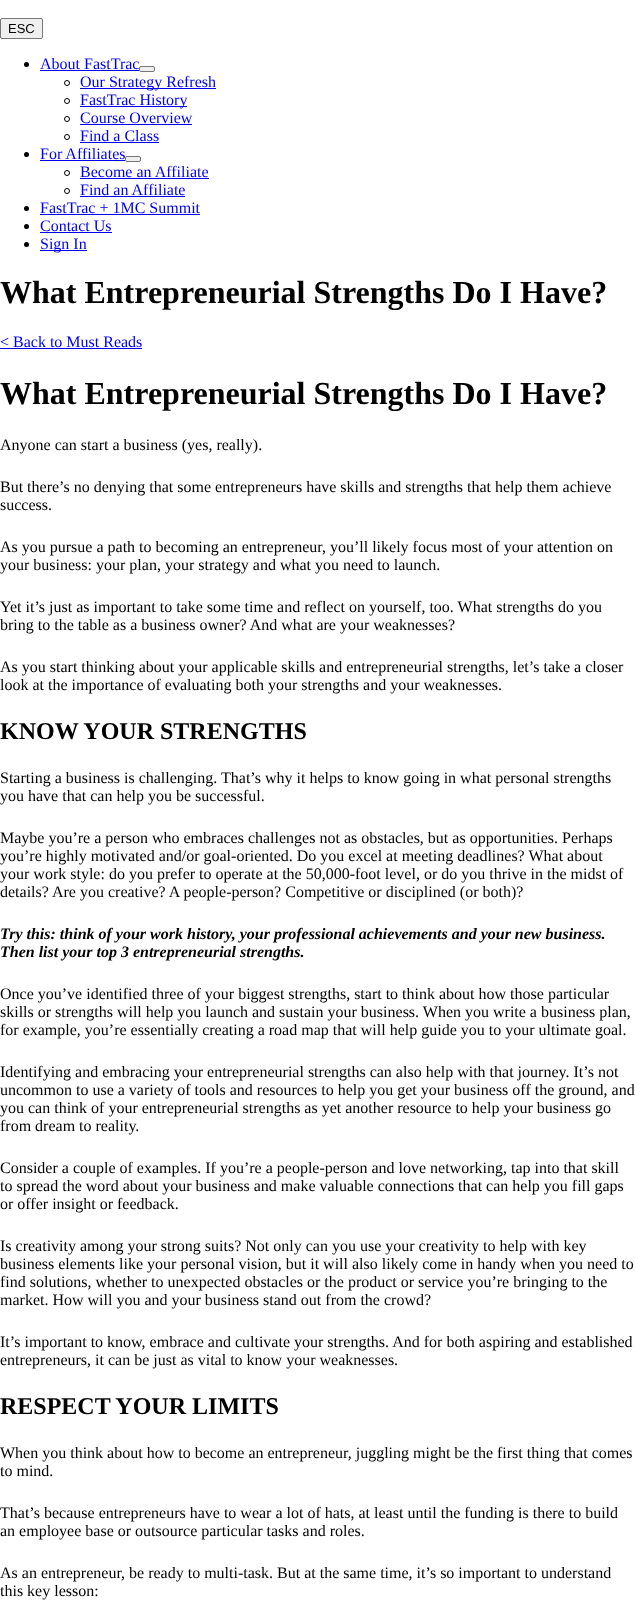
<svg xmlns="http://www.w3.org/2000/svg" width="635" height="1605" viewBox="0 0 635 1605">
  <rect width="100%" height="100%" fill="rgb(255,255,255)"/>
  <rect x="0.5" y="18.5" width="42" height="20" rx="1.5" fill="rgb(239,239,239)" stroke="rgb(118,118,118)"/>
  <text x="8" y="33" font-family="Liberation Sans" font-size="13" fill="rgb(0,0,0)">ESC</text>
  <circle cx="26.5" cy="64.5" r="2.5" fill="rgb(0,0,0)"/>
  <text x="40" y="69" font-family="Liberation Serif" font-size="16" fill="rgb(0,0,238)">About FastTrac</text>
  <rect x="40" y="70" width="99" height="1" fill="rgb(0,0,238)"/>
  <rect x="139.5" y="66.5" width="15" height="5" rx="1.5" fill="rgb(239,239,239)" stroke="rgb(118,118,118)"/>
  <circle cx="67" cy="83" r="2.5" fill="none" stroke="rgb(0,0,0)"/>
  <rect x="80" y="88" width="136" height="1" fill="rgb(0,0,238)"/>
  <text x="80" y="87" font-family="Liberation Serif" font-size="16" fill="rgb(0,0,238)">Our Strategy Refresh</text>
  <circle cx="67" cy="101" r="2.5" fill="none" stroke="rgb(0,0,0)"/>
  <rect x="80" y="106" width="107" height="1" fill="rgb(0,0,238)"/>
  <text x="80" y="105" font-family="Liberation Serif" font-size="16" fill="rgb(0,0,238)">FastTrac History</text>
  <circle cx="67" cy="119" r="2.5" fill="none" stroke="rgb(0,0,0)"/>
  <text x="80" y="123" font-family="Liberation Serif" font-size="16" fill="rgb(0,0,238)">Course Overview</text>
  <rect x="80" y="124" width="112" height="1" fill="rgb(0,0,238)"/>
  <circle cx="67" cy="137" r="2.5" fill="none" stroke="rgb(0,0,0)"/>
  <text x="80" y="141" font-family="Liberation Serif" font-size="16" fill="rgb(0,0,238)">Find a Class</text>
  <rect x="80" y="142" width="79" height="1" fill="rgb(0,0,238)"/>
  <circle cx="26.5" cy="154.5" r="2.5" fill="rgb(0,0,0)"/>
  <text x="40" y="159" font-family="Liberation Serif" font-size="16" fill="rgb(0,0,238)">For Affiliates</text>
  <rect x="40" y="160" width="85" height="1" fill="rgb(0,0,238)"/>
  <rect x="125.5" y="156.5" width="15" height="5" rx="1.5" fill="rgb(239,239,239)" stroke="rgb(118,118,118)"/>
  <circle cx="67" cy="173" r="2.5" fill="none" stroke="rgb(0,0,0)"/>
  <text x="80" y="177" font-family="Liberation Serif" font-size="16" fill="rgb(0,0,238)">Become an Affiliate</text>
  <rect x="80" y="178" width="129" height="1" fill="rgb(0,0,238)"/>
  <circle cx="67" cy="191" r="2.5" fill="none" stroke="rgb(0,0,0)"/>
  <text x="80" y="195" font-family="Liberation Serif" font-size="16" fill="rgb(0,0,238)">Find an Affiliate</text>
  <rect x="80" y="196" width="105" height="1" fill="rgb(0,0,238)"/>
  <circle cx="26.5" cy="208.5" r="2.5" fill="rgb(0,0,0)"/>
  <text x="40" y="213" font-family="Liberation Serif" font-size="16" fill="rgb(0,0,238)">FastTrac + 1MC Summit</text>
  <rect x="40" y="214" width="160" height="1" fill="rgb(0,0,238)"/>
  <circle cx="26.5" cy="226.5" r="2.5" fill="rgb(0,0,0)"/>
  <text x="40" y="231" font-family="Liberation Serif" font-size="16" fill="rgb(0,0,238)">Contact Us</text>
  <rect x="40" y="232" width="72" height="1" fill="rgb(0,0,238)"/>
  <circle cx="26.5" cy="244.5" r="2.5" fill="rgb(0,0,0)"/>
  <rect x="40" y="250" width="47" height="1" fill="rgb(0,0,238)"/>
  <text x="40" y="249" font-family="Liberation Serif" font-size="16" fill="rgb(0,0,238)">Sign In</text>
  <text x="0" y="303" font-family="Liberation Serif" font-size="32" font-weight="bold" fill="rgb(0,0,0)">What Entrepreneurial Strengths Do I Have?</text>
  <text x="0" y="347" font-family="Liberation Serif" font-size="16" fill="rgb(0,0,238)">&lt; Back to Must Reads</text>
  <rect x="0" y="348" width="142" height="1" fill="rgb(0,0,238)"/>
  <text x="0" y="404" font-family="Liberation Serif" font-size="32" font-weight="bold" fill="rgb(0,0,0)">What Entrepreneurial Strengths Do I Have?</text>
  <g font-family="Liberation Serif" font-size="16" fill="rgb(0,0,0)">
    <text x="0" y="450">Anyone can start a business (yes, really).</text>
    <text>
      <tspan x="0" y="492">But there’s no denying that some entrepreneurs have skills and strengths that help them achieve</tspan>
      <tspan x="0" y="510">success.</tspan>
    </text>
    <text>
      <tspan x="0" y="552">As you pursue a path to becoming an entrepreneur, you’ll likely focus most of your attention on</tspan>
      <tspan x="0" y="570">your business: your plan, your strategy and what you need to launch.</tspan>
    </text>
    <text>
      <tspan x="0" y="612">Yet it’s just as important to take some time and reflect on yourself, too. What strengths do you</tspan>
      <tspan x="0" y="630">bring to the table as a business owner? And what are your weaknesses?</tspan>
    </text>
    <text>
      <tspan x="0" y="672">As you start thinking about your applicable skills and entrepreneurial strengths, let’s take a closer</tspan>
      <tspan x="0" y="690">look at the importance of evaluating both your strengths and your weaknesses.</tspan>
    </text>
  </g>
  <text x="0" y="739" font-family="Liberation Serif" font-size="24" font-weight="bold" fill="rgb(0,0,0)">KNOW YOUR STRENGTHS</text>
  <g font-family="Liberation Serif" font-size="16" fill="rgb(0,0,0)">
    <text>
      <tspan x="0" y="783">Starting a business is challenging. That’s why it helps to know going in what personal strengths</tspan>
      <tspan x="0" y="801">you have that can help you be successful.</tspan>
    </text>
    <text>
      <tspan x="0" y="843">Maybe you’re a person who embraces challenges not as obstacles, but as opportunities. Perhaps</tspan>
      <tspan x="0" y="861">you’re highly motivated and/or goal-oriented. Do you excel at meeting deadlines? What about</tspan>
      <tspan x="0" y="879">your work style: do you prefer to operate at the 50,000-foot level, or do you thrive in the midst of</tspan>
      <tspan x="0" y="897">details? Are you creative? A people-person? Competitive or disciplined (or both)?</tspan>
    </text>
  </g>
  <g font-family="Liberation Serif" font-size="16" font-weight="bold" font-style="italic" fill="rgb(0,0,0)">
    <text>
      <tspan x="0" y="939">Try this: think of your work history, your professional achievements and your new business.</tspan>
      <tspan x="0" y="957">Then list your top 3 entrepreneurial strengths.</tspan>
    </text>
  </g>
  <g font-family="Liberation Serif" font-size="16" fill="rgb(0,0,0)">
    <text>
      <tspan x="0" y="999">Once you’ve identified three of your biggest strengths, start to think about how those particular</tspan>
      <tspan x="0" y="1017">skills or strengths will help you launch and sustain your business. When you write a business plan,</tspan>
      <tspan x="0" y="1035">for example, you’re essentially creating a road map that will help guide you to your ultimate goal.</tspan>
    </text>
    <text>
      <tspan x="0" y="1077">Identifying and embracing your entrepreneurial strengths can also help with that journey. It’s not</tspan>
      <tspan x="0" y="1095">uncommon to use a variety of tools and resources to help you get your business off the ground, and</tspan>
      <tspan x="0" y="1113">you can think of your entrepreneurial strengths as yet another resource to help your business go</tspan>
      <tspan x="0" y="1131">from dream to reality.</tspan>
    </text>
    <text>
      <tspan x="0" y="1173">Consider a couple of examples. If you’re a people-person and love networking, tap into that skill</tspan>
      <tspan x="0" y="1191">to spread the word about your business and make valuable connections that can help you fill gaps</tspan>
      <tspan x="0" y="1209">or offer insight or feedback.</tspan>
    </text>
    <text>
      <tspan x="0" y="1251">Is creativity among your strong suits? Not only can you use your creativity to help with key</tspan>
      <tspan x="0" y="1269">business elements like your personal vision, but it will also likely come in handy when you need to</tspan>
      <tspan x="0" y="1287">find solutions, whether to unexpected obstacles or the product or service you’re bringing to the</tspan>
      <tspan x="0" y="1305">market. How will you and your business stand out from the crowd?</tspan>
    </text>
    <text>
      <tspan x="0" y="1347">It’s important to know, embrace and cultivate your strengths. And for both aspiring and established</tspan>
      <tspan x="0" y="1365">entrepreneurs, it can be just as vital to know your weaknesses.</tspan>
    </text>
  </g>
  <text x="0" y="1414" font-family="Liberation Serif" font-size="24" font-weight="bold" fill="rgb(0,0,0)">RESPECT YOUR LIMITS</text>
  <g font-family="Liberation Serif" font-size="16" fill="rgb(0,0,0)">
    <text>
      <tspan x="0" y="1458">When you think about how to become an entrepreneur, juggling might be the first thing that comes</tspan>
      <tspan x="0" y="1476">to mind.</tspan>
    </text>
    <text>
      <tspan x="0" y="1518">That’s because entrepreneurs have to wear a lot of hats, at least until the funding is there to build</tspan>
      <tspan x="0" y="1536">an employee base or outsource particular tasks and roles.</tspan>
    </text>
    <text>
      <tspan x="0" y="1578">As an entrepreneur, be ready to multi-task. But at the same time, it’s so important to understand</tspan>
      <tspan x="0" y="1596">this key lesson:</tspan>
    </text>
  </g>
</svg>
